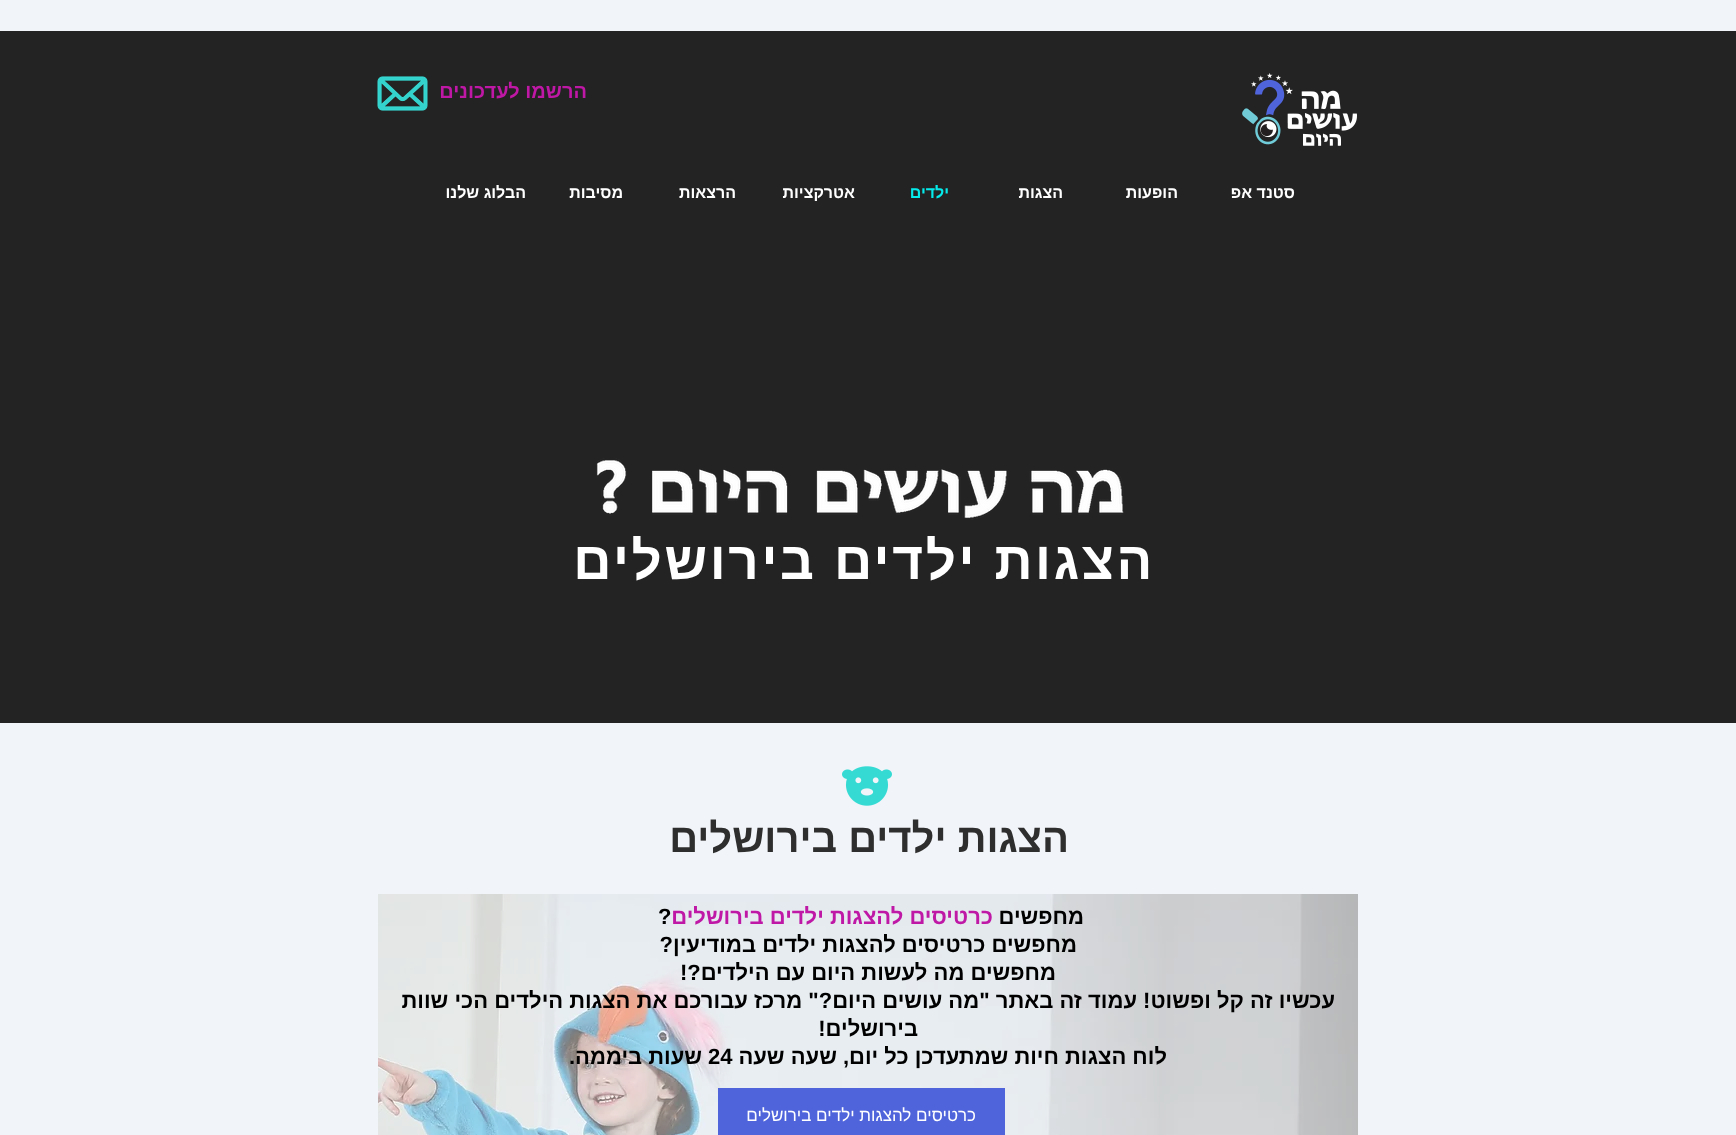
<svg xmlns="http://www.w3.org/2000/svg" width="1736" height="1135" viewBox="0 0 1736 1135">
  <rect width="100%" height="100%" fill="rgb(241,244,249)"/>
  <rect x="0" y="31" width="1736" height="692" fill="rgb(36,35,35)"/>
  <image x="1242" y="73" width="115" height="73" href="pic1.png"/>
  <text x="587" y="98" font-family="Liberation Sans" font-size="20" font-weight="bold" direction="rtl" fill="rgb(191,23,166)">הרשמו לעדכונים</text>
  <image x="377" y="76" width="51" height="35" href="pic2.png"/>
  <g font-family="Liberation Sans" font-size="16" font-weight="bold" direction="rtl" fill="rgb(255,255,255)">
    <text x="1295" y="198">סטנד אפ</text>
    <text x="1178" y="198">הופעות</text>
    <text x="1063" y="198">הצגות</text>
  </g>
  <text x="949" y="198" font-family="Liberation Sans" font-size="16" font-weight="bold" direction="rtl" fill="rgb(5,235,235)">ילדים</text>
  <g font-family="Liberation Sans" font-size="16" font-weight="bold" direction="rtl" fill="rgb(255,255,255)">
    <text x="855" y="198">אטרקציות</text>
    <text x="736" y="198">הרצאות</text>
    <text x="623" y="198">מסיבות</text>
    <text x="526" y="198">הבלוג שלנו</text>
  </g>
  <image x="596" y="458" width="528" height="62" href="pic3.png"/>
  <text x="1155" y="579" font-family="Liberation Sans" font-size="53" font-weight="bold" letter-spacing="2.6" direction="rtl" fill="rgb(255,255,255)">הצגות ילדים בירושלים</text>
  <image x="842" y="766" width="50" height="40" href="pic4.png"/>
  <text x="1069" y="852" font-family="Liberation Sans" font-size="40" font-weight="bold" direction="rtl" fill="rgb(47,46,46)">הצגות ילדים בירושלים</text>
  <image x="378" y="894" width="980" height="241" href="pic5.png"/>
  <text x="1084" y="924" font-family="Liberation Sans" font-size="22" font-weight="bold" direction="rtl" fill="rgb(0,0,0)">מחפשים</text>
  <text x="993" y="924" font-family="Liberation Sans" font-size="22" font-weight="bold" direction="rtl" fill="rgb(191,23,166)">כרטיסים להצגות ילדים בירושלים</text>
  <text x="658" y="924" font-family="Liberation Sans" font-size="22" font-weight="bold" fill="rgb(0,0,0)">?</text>
  <g font-family="Liberation Sans" font-size="22" font-weight="bold" direction="rtl" fill="rgb(0,0,0)">
    <text x="1077" y="952">מחפשים כרטיסים להצגות ילדים במודיעין?</text>
    <text x="1056" y="980">מחפשים מה לעשות היום עם הילדים?!</text>
    <text x="1335" y="1008">עכשיו זה קל ופשוט! עמוד זה באתר "מה עושים היום?" מרכז עבורכם את הצגות הילדים הכי שוות</text>
    <text x="918" y="1036">בירושלים!</text>
    <text x="1167" y="1064">לוח הצגות חיות שמתעדכן כל יום, שעה שעה</text>
  </g>
  <text x="708" y="1064" font-family="Liberation Sans" font-size="22" font-weight="bold" fill="rgb(0,0,0)">24</text>
  <text x="702" y="1064" font-family="Liberation Sans" font-size="22" font-weight="bold" direction="rtl" fill="rgb(0,0,0)">שעות ביממה.</text>
  <rect x="718" y="1088" width="287" height="47" fill="rgb(79,100,219)"/>
  <text x="976" y="1121" font-family="Liberation Sans" font-size="17" direction="rtl" fill="rgb(255,255,255)">כרטיסים להצגות ילדים בירושלים</text>
</svg>
